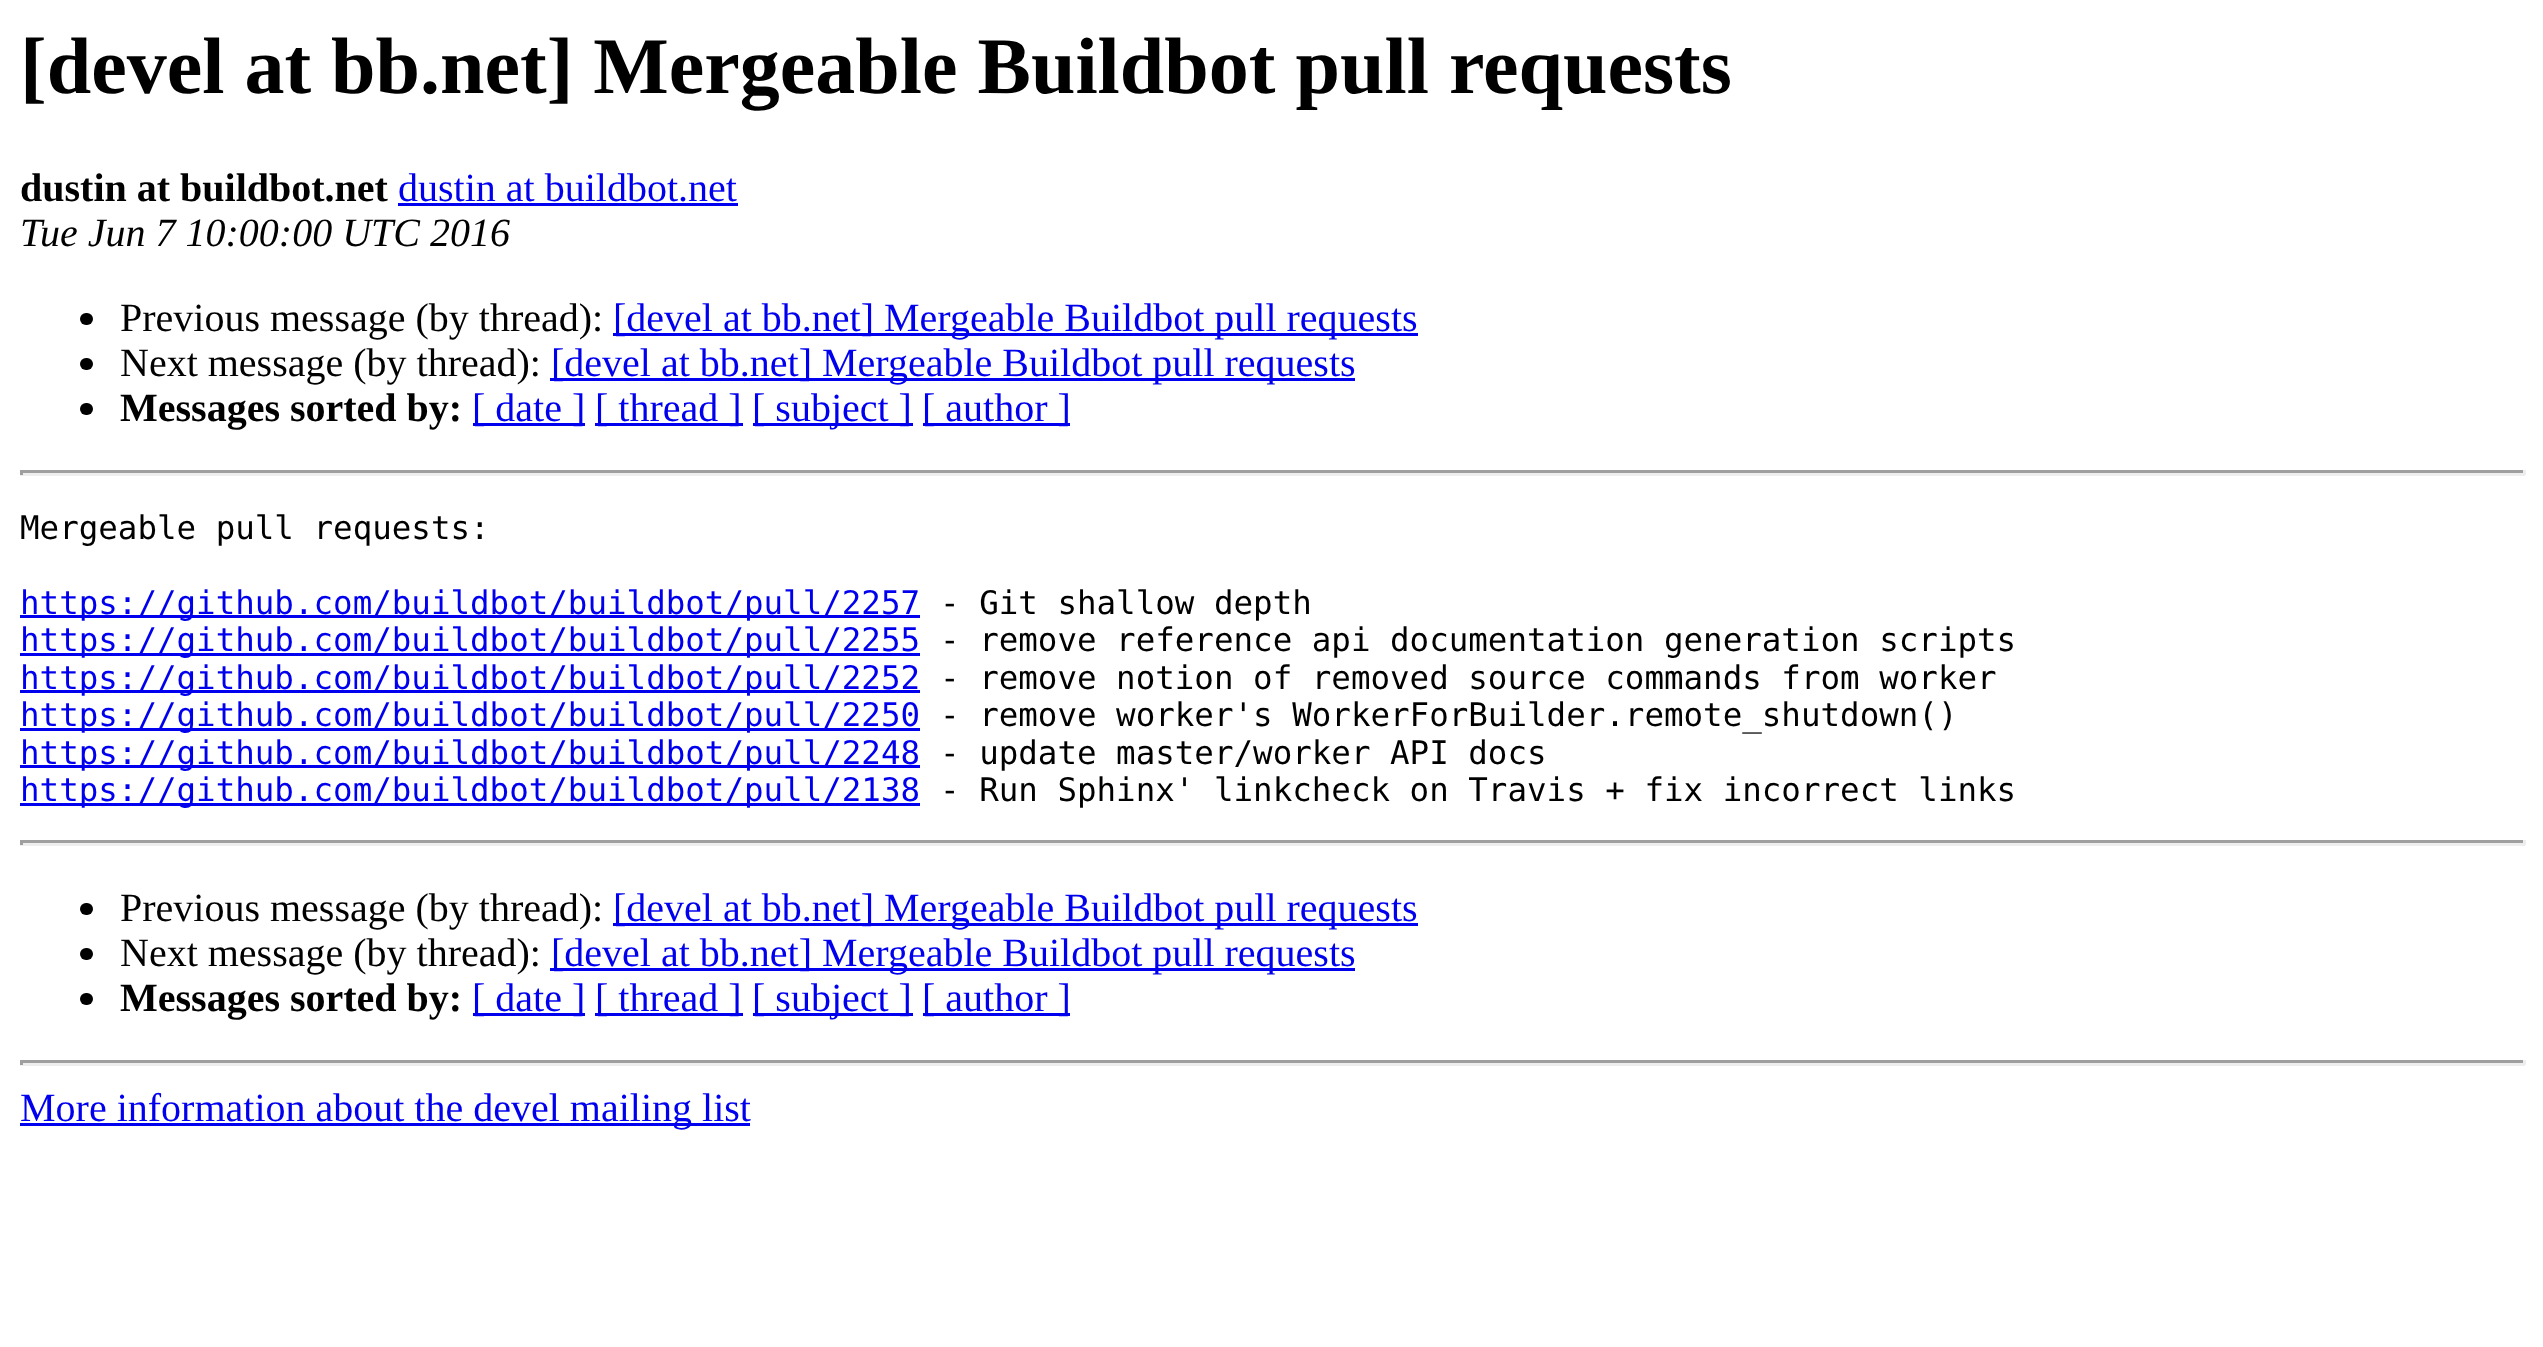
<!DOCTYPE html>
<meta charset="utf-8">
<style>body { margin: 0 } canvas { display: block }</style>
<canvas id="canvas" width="2543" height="1347"></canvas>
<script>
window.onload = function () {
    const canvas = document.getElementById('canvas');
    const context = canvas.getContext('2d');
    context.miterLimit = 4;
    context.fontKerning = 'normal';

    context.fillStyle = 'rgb(255, 255, 255)';
    context.fillRect(0, 0, 2543, 1347);
    context.fillStyle = 'rgb(0, 0, 238)';
    context.fillRect(398, 203, 340, 3);
    context.fillStyle = 'rgb(0, 0, 0)';
    context.beginPath();
    context.roundRect(80, 313, 13, 12, 6);
    context.fill();
    context.fillStyle = 'rgb(0, 0, 238)';
    context.fillRect(613, 333, 805, 3);
    context.fillStyle = 'rgb(0, 0, 0)';
    context.beginPath();
    context.roundRect(80, 358, 13, 12, 6);
    context.fill();
    context.fillStyle = 'rgb(0, 0, 238)';
    context.fillRect(550, 378, 805, 3);
    context.fillStyle = 'rgb(0, 0, 0)';
    context.beginPath();
    context.roundRect(80, 403, 13, 12, 6);
    context.fill();
    context.fillStyle = 'rgb(0, 0, 238)';
    context.fillRect(473, 423, 112, 3);
    context.fillRect(595, 423, 148, 3);
    context.fillRect(753, 423, 160, 3);
    context.fillRect(923, 423, 147, 3);
    context.fillStyle = 'rgb(159, 159, 159)';
    context.fillRect(20, 470, 2505, 3);
    context.fillStyle = 'rgb(238, 238, 238)';
    context.fillRect(2523, 470, 3, 5);
    context.fillRect(20, 473, 2505, 3);
    context.fillStyle = 'rgb(159, 159, 159)';
    context.fillRect(20, 470, 3, 5);
    context.fillStyle = 'rgb(0, 0, 238)';
    context.fillRect(20, 615, 900, 3);
    context.fillRect(20, 653, 900, 3);
    context.fillRect(20, 690, 900, 3);
    context.fillRect(20, 728, 900, 3);
    context.fillRect(20, 765, 900, 3);
    context.fillRect(20, 803, 900, 3);
    context.fillStyle = 'rgb(159, 159, 159)';
    context.fillRect(20, 840, 2505, 3);
    context.fillStyle = 'rgb(238, 238, 238)';
    context.fillRect(2523, 840, 3, 5);
    context.fillRect(20, 843, 2505, 3);
    context.fillStyle = 'rgb(159, 159, 159)';
    context.fillRect(20, 840, 3, 5);
    context.fillStyle = 'rgb(0, 0, 0)';
    context.beginPath();
    context.roundRect(80, 903, 13, 12, 6);
    context.fill();
    context.fillStyle = 'rgb(0, 0, 238)';
    context.fillRect(613, 923, 805, 3);
    context.fillStyle = 'rgb(0, 0, 0)';
    context.beginPath();
    context.roundRect(80, 948, 13, 12, 6);
    context.fill();
    context.fillStyle = 'rgb(0, 0, 238)';
    context.fillRect(550, 968, 805, 3);
    context.fillStyle = 'rgb(0, 0, 0)';
    context.beginPath();
    context.roundRect(80, 993, 13, 12, 6);
    context.fill();
    context.fillStyle = 'rgb(0, 0, 238)';
    context.fillRect(473, 1013, 112, 3);
    context.fillRect(595, 1013, 148, 3);
    context.fillRect(753, 1013, 160, 3);
    context.fillRect(923, 1013, 147, 3);
    context.fillStyle = 'rgb(159, 159, 159)';
    context.fillRect(20, 1060, 2505, 3);
    context.fillStyle = 'rgb(238, 238, 238)';
    context.fillRect(2523, 1060, 3, 5);
    context.fillRect(20, 1063, 2505, 3);
    context.fillStyle = 'rgb(159, 159, 159)';
    context.fillRect(20, 1060, 3, 5);
    context.fillStyle = 'rgb(0, 0, 238)';
    context.fillRect(20, 1123, 730, 3);
    context.font = 'bold 80px Liberation Serif';
    context.fillStyle = 'rgb(0, 0, 0)';
    context.fillText('[devel at bb.net] Mergeable Buildbot pull requests', 20, 93);
    context.font = 'bold 40px Liberation Serif';
    context.fillText('dustin at buildbot.net', 20, 201);
    context.font = '40px Liberation Serif';
    context.fillStyle = 'rgb(0, 0, 238)';
    context.fillText('dustin at buildbot.net', 398, 201);
    context.font = 'italic 40px Liberation Serif';
    context.fillStyle = 'rgb(0, 0, 0)';
    context.fillText('Tue Jun 7 10:00:00 UTC 2016', 20, 246);
    context.font = '40px Liberation Serif';
    context.fillText('Previous message (by thread):', 120, 331);
    context.fillStyle = 'rgb(0, 0, 238)';
    context.fillText('[devel at bb.net] Mergeable Buildbot pull requests', 613, 331);
    context.fillStyle = 'rgb(0, 0, 0)';
    context.fillText('Next message (by thread):', 120, 376);
    context.fillStyle = 'rgb(0, 0, 238)';
    context.fillText('[devel at bb.net] Mergeable Buildbot pull requests', 551, 376);
    context.font = 'bold 40px Liberation Serif';
    context.fillStyle = 'rgb(0, 0, 0)';
    context.fillText('Messages sorted by:', 120, 421);
    context.font = '40px Liberation Serif';
    context.fillStyle = 'rgb(0, 0, 238)';
    context.fillText('[ date ]', 472, 421);
    context.fillText('[ thread ]', 595, 421);
    context.fillText('[ subject ]', 752, 421);
    context.fillText('[ author ]', 922, 421);
    context.font = '32.5px DejaVu Sans Mono';
    context.fillStyle = 'rgb(0, 0, 0)';
    context.fillText('Mergeable pull requests:', 20, 539);
    context.fillStyle = 'rgb(0, 0, 238)';
    context.fillText('https://github.com/buildbot/buildbot/pull/2257', 20, 614);
    context.fillStyle = 'rgb(0, 0, 0)';
    context.fillText('- Git shallow depth', 940, 614);
    context.fillStyle = 'rgb(0, 0, 238)';
    context.fillText('https://github.com/buildbot/buildbot/pull/2255', 20, 651);
    context.fillStyle = 'rgb(0, 0, 0)';
    context.fillText('- remove reference api documentation generation scripts', 940, 651);
    context.fillStyle = 'rgb(0, 0, 238)';
    context.fillText('https://github.com/buildbot/buildbot/pull/2252', 20, 689);
    context.fillStyle = 'rgb(0, 0, 0)';
    context.fillText('- remove notion of removed source commands from worker', 940, 689);
    context.fillStyle = 'rgb(0, 0, 238)';
    context.fillText('https://github.com/buildbot/buildbot/pull/2250', 20, 726);
    context.fillStyle = 'rgb(0, 0, 0)';
    context.fillText('- remove worker\'s WorkerForBuilder.remote_shutdown()', 940, 726);
    context.fillStyle = 'rgb(0, 0, 238)';
    context.fillText('https://github.com/buildbot/buildbot/pull/2248', 20, 764);
    context.fillStyle = 'rgb(0, 0, 0)';
    context.fillText('- update master/worker API docs', 940, 764);
    context.fillStyle = 'rgb(0, 0, 238)';
    context.fillText('https://github.com/buildbot/buildbot/pull/2138', 20, 801);
    context.fillStyle = 'rgb(0, 0, 0)';
    context.fillText('- Run Sphinx\' linkcheck on Travis + fix incorrect links', 940, 801);
    context.font = '40px Liberation Serif';
    context.fillText('Previous message (by thread):', 120, 921);
    context.fillStyle = 'rgb(0, 0, 238)';
    context.fillText('[devel at bb.net] Mergeable Buildbot pull requests', 613, 921);
    context.fillStyle = 'rgb(0, 0, 0)';
    context.fillText('Next message (by thread):', 120, 966);
    context.fillStyle = 'rgb(0, 0, 238)';
    context.fillText('[devel at bb.net] Mergeable Buildbot pull requests', 551, 966);
    context.font = 'bold 40px Liberation Serif';
    context.fillStyle = 'rgb(0, 0, 0)';
    context.fillText('Messages sorted by:', 120, 1011);
    context.font = '40px Liberation Serif';
    context.fillStyle = 'rgb(0, 0, 238)';
    context.fillText('[ date ]', 472, 1011);
    context.fillText('[ thread ]', 595, 1011);
    context.fillText('[ subject ]', 752, 1011);
    context.fillText('[ author ]', 922, 1011);
    context.fillText('More information about the devel mailing list', 20, 1121);
};
</script>
